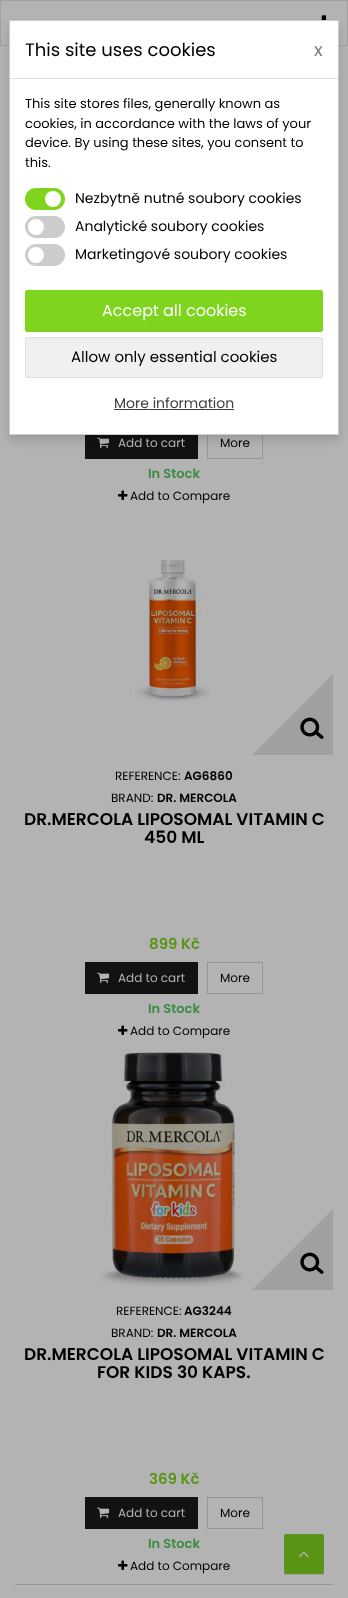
<!DOCTYPE html>
<meta charset="utf-8">
<style>body { margin: 0 } canvas { display: block }</style>
<canvas id="canvas" width="348" height="1598"></canvas>
<img id="img1" src="images/1.png" hidden>
<img id="img2" src="images/2.png" hidden>
<img id="img3" src="images/3.png" hidden>
<img id="img4" src="images/4.png" hidden>
<img id="img5" src="images/5.png" hidden>
<img id="img6" src="images/6.png" hidden>
<img id="img7" src="images/7.png" hidden>
<script>
window.onload = function () {
    const canvas = document.getElementById('canvas');
    const context = canvas.getContext('2d');
    context.miterLimit = 4;
    context.fontKerning = 'normal';

    context.fillStyle = 'rgb(179, 179, 179)';
    context.fillRect(0, 0, 348, 1598);
    context.strokeStyle = 'rgb(161, 161, 161)';
    context.strokeRect(0.5, 0.5, 347, 45);
    context.drawImage(document.getElementById('img1'), 321, 15, 5, 5);
    context.fillStyle = 'rgb(19, 18, 19)';
    context.fillRect(85, 435, 113, 24);
    context.drawImage(document.getElementById('img2'), 97, 437, 13, 11);
    context.strokeStyle = 'rgb(150, 148, 148)';
    context.strokeRect(207.5, 427.5, 55, 31);
    context.fillStyle = 'rgba(0, 0, 0, 0.15)';
    context.filter = 'blur(5px)';
    context.beginPath();
    context.rect(9, 25, 330, 415);
    context.fill();
    context.filter = 'none';
    context.fillStyle = 'rgb(255, 255, 255)';
    context.beginPath();
    context.rect(9.5, 20.5, 329, 414);
    context.fill();
    context.strokeStyle = 'rgb(204, 204, 204)';
    context.stroke();
    context.fillStyle = 'rgb(222, 226, 230)';
    context.fillRect(10, 78, 328, 1);
    context.fillStyle = 'rgb(127, 212, 29)';
    context.beginPath();
    context.roundRect(25, 188, 40, 22, 11);
    context.fill();
    context.fillStyle = 'rgb(255, 255, 255)';
    context.beginPath();
    context.arc(53, 199, 8, 0, 2 * Math.PI);
    context.fill();
    context.fillStyle = 'rgb(204, 204, 204)';
    context.beginPath();
    context.roundRect(25, 216, 40, 22, 11);
    context.fill();
    context.fillStyle = 'rgb(255, 255, 255)';
    context.beginPath();
    context.arc(36, 227, 8, 0, 2 * Math.PI);
    context.fill();
    context.fillStyle = 'rgb(204, 204, 204)';
    context.beginPath();
    context.roundRect(25, 244, 40, 22, 11);
    context.fill();
    context.fillStyle = 'rgb(255, 255, 255)';
    context.beginPath();
    context.arc(36, 255, 8, 0, 2 * Math.PI);
    context.fill();
    context.fillStyle = 'rgb(127, 212, 29)';
    context.beginPath();
    context.roundRect(25.5, 290.5, 297, 41, 1.5);
    context.fill();
    context.strokeStyle = 'rgb(127, 212, 29)';
    context.stroke();
    context.fillStyle = 'rgb(240, 240, 240)';
    context.beginPath();
    context.roundRect(25.5, 337.5, 297, 40, 1.5);
    context.fill();
    context.strokeStyle = 'rgb(221, 221, 221)';
    context.stroke();
    context.fillStyle = 'rgb(64, 64, 64)';
    context.fillRect(114, 409, 120, 1);
    context.drawImage(document.getElementById('img3'), 118, 490, 10, 10);
    context.drawImage(document.getElementById('img4'), 135, 560, 76, 141);
    context.save();
    context.beginPath();
    context.rect(118, 600, 215, 155);
    context.clip();
    context.fillStyle = 'rgb(160, 160, 161)';
    context.beginPath();
    context.moveTo(338, 669);
    context.lineTo(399, 729);
    context.lineTo(307, 821);
    context.lineTo(246, 761);
    context.closePath();
    context.fill();
    context.restore();
    context.drawImage(document.getElementById('img5'), 300, 717, 24, 22);
    context.fillStyle = 'rgb(19, 18, 19)';
    context.fillRect(85, 962, 113, 32);
    context.drawImage(document.getElementById('img2'), 97, 972, 13, 11);
    context.strokeStyle = 'rgb(150, 148, 148)';
    context.strokeRect(207.5, 962.5, 55, 31);
    context.drawImage(document.getElementById('img3'), 118, 1025, 10, 10);
    context.drawImage(document.getElementById('img6'), 100, 1048, 144, 239);
    context.save();
    context.beginPath();
    context.rect(118, 1135, 215, 155);
    context.clip();
    context.fillStyle = 'rgb(160, 160, 161)';
    context.beginPath();
    context.moveTo(338, 1204);
    context.lineTo(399, 1264);
    context.lineTo(307, 1356);
    context.lineTo(246, 1296);
    context.closePath();
    context.fill();
    context.restore();
    context.drawImage(document.getElementById('img5'), 300, 1252, 24, 22);
    context.fillRect(85, 1497, 113, 32);
    context.drawImage(document.getElementById('img2'), 97, 1507, 13, 11);
    context.strokeRect(207.5, 1497.5, 55, 31);
    context.drawImage(document.getElementById('img3'), 118, 1560, 10, 10);
    context.fillStyle = 'rgb(150, 148, 148)';
    context.fillRect(15, 1584, 318, 1);
    context.fillStyle = 'rgba(0, 0, 0, 0.1)';
    context.filter = 'blur(0.5px)';
    context.beginPath();
    context.roundRect(284, 1535, 40, 40, 2);
    context.fill();
    context.filter = 'none';
    context.fillStyle = 'rgb(89, 148, 20)';
    context.beginPath();
    context.roundRect(284, 1534, 40, 40, 2);
    context.fill();
    context.drawImage(document.getElementById('img7'), 298, 1551, 11, 7);
    context.font = '18px Poppins';
    context.fillStyle = 'rgb(0, 0, 0)';
    context.fillText('This site uses cookies', 25, 56);
    context.fillStyle = 'rgb(122, 122, 122)';
    context.fillText('x', 314, 56);
    context.font = '13px Poppins';
    context.fillStyle = 'rgb(0, 0, 0)';
    context.fillText('This site stores files, generally known as', 25, 108);
    context.fillText('cookies, in accordance with the laws of your', 25, 128);
    context.fillText('device. By using these sites, you consent to', 25, 147);
    context.fillText('this.', 25, 167);
    context.font = '14px Poppins';
    context.fillText('Nezbytně nutné soubory cookies', 75, 203);
    context.fillText('Analytické soubory cookies', 75, 231);
    context.fillText('Marketingové soubory cookies', 75, 259);
    context.font = '16px Poppins';
    context.fillStyle = 'rgb(255, 255, 255)';
    context.fillText('Accept all cookies', 102, 316);
    context.font = '15px Poppins';
    context.fillStyle = 'rgb(0, 0, 0)';
    context.fillText('Allow only essential cookies', 71, 362);
    context.font = '14px Poppins';
    context.fillStyle = 'rgb(64, 64, 64)';
    context.fillText('More information', 114, 408);
    context.font = '12px Poppins';
    context.fillStyle = 'rgb(179, 179, 179)';
    context.fillText('Add to cart', 118, 447);
    context.fillStyle = 'rgb(0, 0, 0)';
    context.fillText('More', 220, 447);
    context.font = '600 13px Poppins';
    context.fillStyle = 'rgb(59, 139, 66)';
    context.fillText('In Stock', 148, 478);
    context.font = '12px Poppins';
    context.fillStyle = 'rgb(0, 0, 0)';
    context.fillText('Add to Compare', 130, 500);
    context.fillText('REFERENCE:', 115, 780);
    context.font = '600 12px Poppins';
    context.fillText('AG6860', 184, 780);
    context.font = '12px Poppins';
    context.fillText('BRAND:', 111, 802);
    context.font = '600 12px Poppins';
    context.fillText('DR. MERCOLA', 157, 802);
    context.font = '600 17px Poppins';
    context.fillText('DR.MERCOLA LIPOSOMAL VITAMIN C', 24, 825);
    context.fillText('450 ML', 144, 843);
    context.font = '600 15px Poppins';
    context.fillStyle = 'rgb(89, 148, 20)';
    context.fillText('899 Kč', 149, 949);
    context.font = '12px Poppins';
    context.fillStyle = 'rgb(179, 179, 179)';
    context.fillText('Add to cart', 118, 982);
    context.fillStyle = 'rgb(0, 0, 0)';
    context.fillText('More', 220, 982);
    context.font = '600 13px Poppins';
    context.fillStyle = 'rgb(59, 139, 66)';
    context.fillText('In Stock', 148, 1013);
    context.font = '12px Poppins';
    context.fillStyle = 'rgb(0, 0, 0)';
    context.fillText('Add to Compare', 130, 1035);
    context.fillText('REFERENCE:', 116, 1315);
    context.font = '600 12px Poppins';
    context.fillText('AG3244', 184, 1315);
    context.font = '12px Poppins';
    context.fillText('BRAND:', 111, 1337);
    context.font = '600 12px Poppins';
    context.fillText('DR. MERCOLA', 157, 1337);
    context.font = '600 17px Poppins';
    context.fillText('DR.MERCOLA LIPOSOMAL VITAMIN C', 24, 1360);
    context.fillText('FOR KIDS 30 KAPS.', 97, 1378);
    context.font = '600 15px Poppins';
    context.fillStyle = 'rgb(89, 148, 20)';
    context.fillText('369 Kč', 149, 1484);
    context.font = '12px Poppins';
    context.fillStyle = 'rgb(179, 179, 179)';
    context.fillText('Add to cart', 118, 1517);
    context.fillStyle = 'rgb(0, 0, 0)';
    context.fillText('More', 220, 1517);
    context.font = '600 13px Poppins';
    context.fillStyle = 'rgb(59, 139, 66)';
    context.fillText('In Stock', 148, 1548);
    context.font = '12px Poppins';
    context.fillStyle = 'rgb(0, 0, 0)';
    context.fillText('Add to Compare', 130, 1570);
};
</script>
